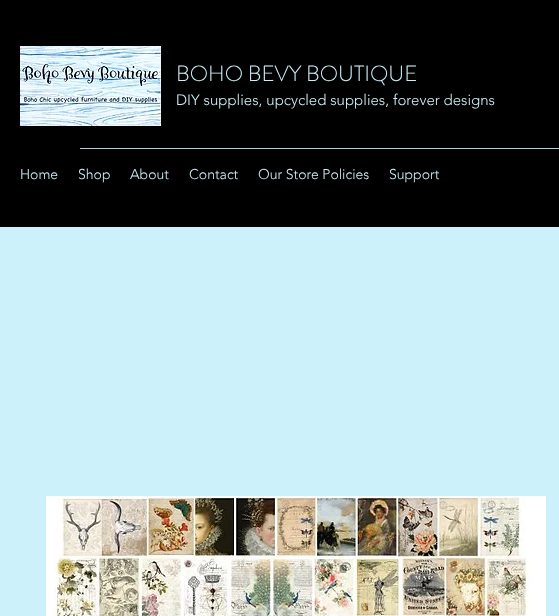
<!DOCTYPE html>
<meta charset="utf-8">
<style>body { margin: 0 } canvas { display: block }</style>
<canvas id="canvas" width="559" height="616"></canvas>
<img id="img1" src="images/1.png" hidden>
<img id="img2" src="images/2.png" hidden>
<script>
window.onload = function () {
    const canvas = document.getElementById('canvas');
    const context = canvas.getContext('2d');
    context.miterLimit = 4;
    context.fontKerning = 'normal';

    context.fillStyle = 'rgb(205, 241, 250)';
    context.fillRect(0, 0, 559, 616);
    context.fillStyle = 'rgb(0, 0, 0)';
    context.fillRect(0, 0, 559, 227);
    context.drawImage(document.getElementById('img1'), 20, 46, 141, 80);
    context.fillStyle = 'rgb(174, 205, 213)';
    context.fillRect(80, 148, 479, 1);
    context.drawImage(document.getElementById('img2'), 46, 496, 500, 120);
    context.font = '300 22px "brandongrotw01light"';
    context.fillStyle = 'rgb(205, 241, 250)';
    context.fillText('BOHO BEVY BOUTIQUE', 176, 81);
    context.font = '300 15px "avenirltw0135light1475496"';
    context.fillText('DIY supplies, upcycled supplies, forever designs', 176, 105);
    context.font = '300 14px "avenirltw0135light1475496"';
    context.fillText('Home', 20, 179);
    context.fillText('Shop', 78, 179);
    context.fillText('About', 130, 179);
    context.fillText('Contact', 189, 179);
    context.fillText('Our Store Policies', 258, 179);
    context.fillText('Support', 389, 179);
};
</script>
